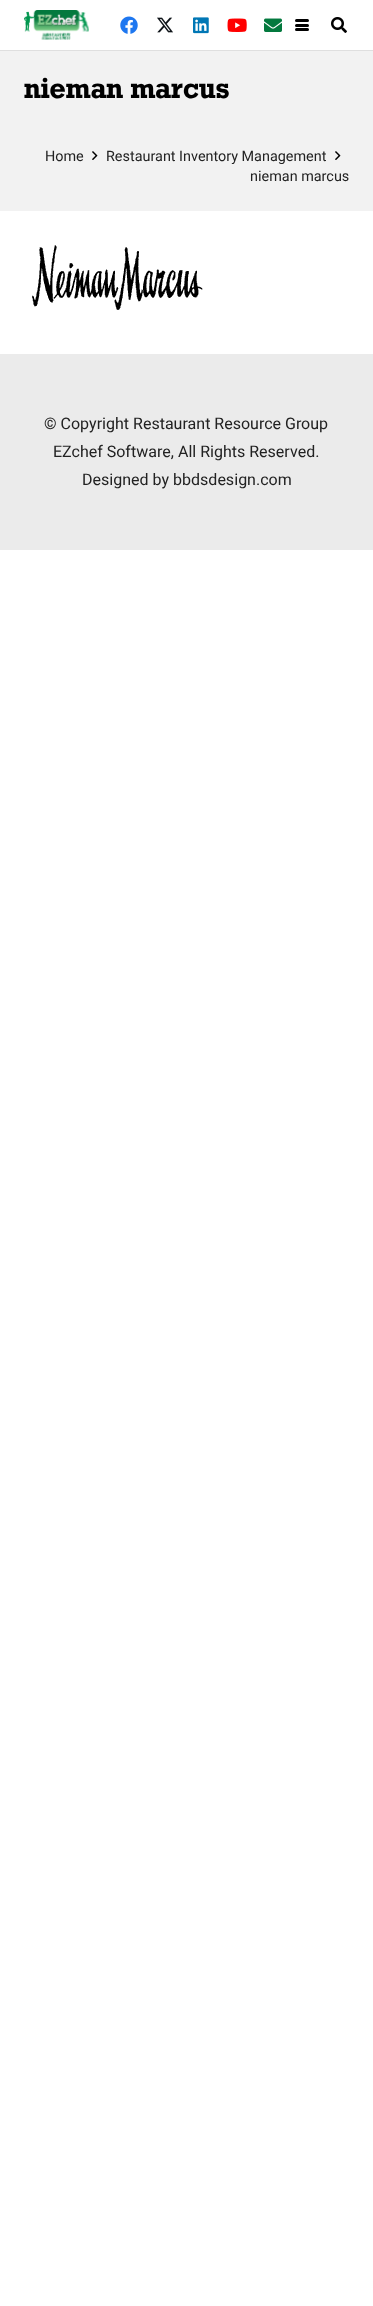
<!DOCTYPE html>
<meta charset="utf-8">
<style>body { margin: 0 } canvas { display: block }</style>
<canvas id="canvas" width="373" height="2306"></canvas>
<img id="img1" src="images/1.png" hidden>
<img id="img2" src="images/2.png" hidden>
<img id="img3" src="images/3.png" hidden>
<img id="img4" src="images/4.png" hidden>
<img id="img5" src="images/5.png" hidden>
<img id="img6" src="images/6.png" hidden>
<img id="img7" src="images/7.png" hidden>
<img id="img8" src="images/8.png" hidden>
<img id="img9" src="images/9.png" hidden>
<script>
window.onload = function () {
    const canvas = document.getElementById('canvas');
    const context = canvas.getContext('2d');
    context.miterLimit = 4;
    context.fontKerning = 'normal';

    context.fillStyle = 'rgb(255, 255, 255)';
    context.fillRect(0, 0, 373, 2306);
    context.fillStyle = 'rgb(223, 223, 223)';
    context.fillRect(0, 50, 373, 1);
    context.drawImage(document.getElementById('img1'), 24, 10, 65, 30);
    context.drawImage(document.getElementById('img2'), 120, 16, 18, 18);
    context.drawImage(document.getElementById('img3'), 157, 17, 16, 16);
    context.drawImage(document.getElementById('img4'), 193, 17, 16, 17);
    context.drawImage(document.getElementById('img5'), 227, 18, 20, 14);
    context.drawImage(document.getElementById('img6'), 264, 18, 18, 14);
    context.fillStyle = 'rgb(0, 0, 0)';
    context.beginPath();
    context.roundRect(295, 24, 14, 3, 1.5);
    context.fill();
    context.beginPath();
    context.roundRect(295, 19, 14, 3, 1.5);
    context.fill();
    context.beginPath();
    context.roundRect(295, 28, 14, 3, 1.5);
    context.fill();
    context.drawImage(document.getElementById('img7'), 331, 17, 16, 16);
    context.fillStyle = 'rgb(242, 242, 242)';
    context.fillRect(0, 51, 373, 160);
    context.drawImage(document.getElementById('img8'), 92, 151, 6, 9);
    context.drawImage(document.getElementById('img8'), 335, 151, 6, 9);
    context.drawImage(document.getElementById('img9'), 32, 245, 171, 65);
    context.fillStyle = 'rgb(235, 235, 235)';
    context.fillRect(0, 354, 373, 196);
    context.font = 'bold 28.75px "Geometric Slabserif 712"';
    context.fillStyle = 'rgb(0, 0, 0)';
    context.fillText('nieman marcus', 24, 98);
    context.font = '14.4px Heebo';
    context.fillStyle = 'rgb(34, 34, 34)';
    context.fillText('Home', 45, 161);
    context.fillText('Restaurant Inventory Management', 106, 161);
    context.fillText('nieman marcus', 250, 181);
    context.font = '16px Heebo';
    context.fillText('© Copyright Restaurant Resource Group', 44, 429);
    context.fillText('EZchef Software, All Rights Reserved.', 53, 457);
    context.fillText('Designed by bbdsdesign.com', 82, 485);
};
</script>
